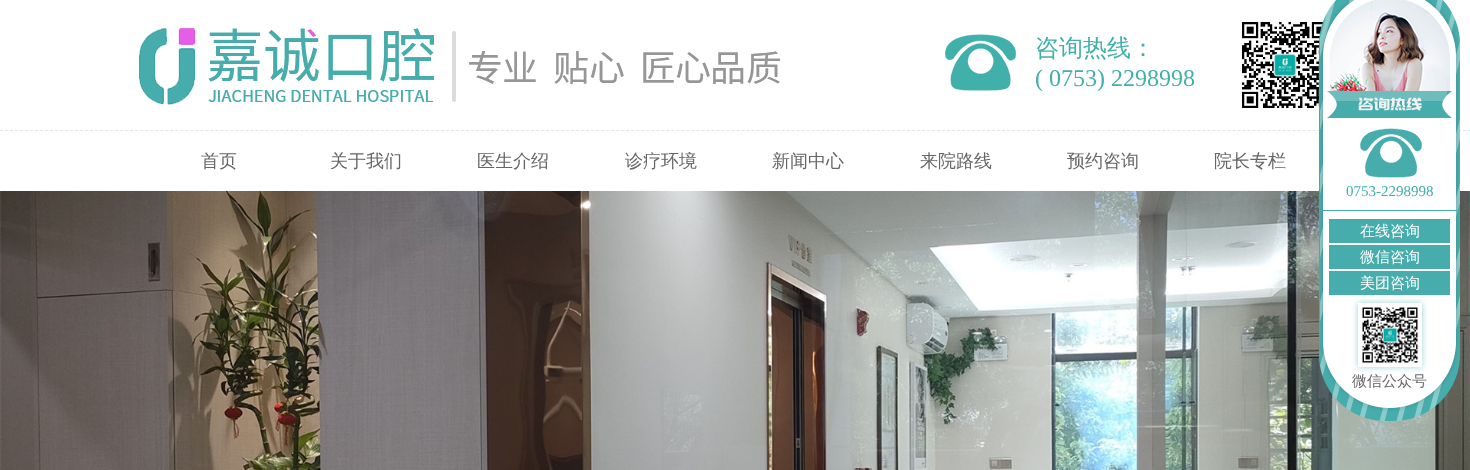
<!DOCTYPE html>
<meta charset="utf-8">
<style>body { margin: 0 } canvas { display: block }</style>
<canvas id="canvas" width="1470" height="470"></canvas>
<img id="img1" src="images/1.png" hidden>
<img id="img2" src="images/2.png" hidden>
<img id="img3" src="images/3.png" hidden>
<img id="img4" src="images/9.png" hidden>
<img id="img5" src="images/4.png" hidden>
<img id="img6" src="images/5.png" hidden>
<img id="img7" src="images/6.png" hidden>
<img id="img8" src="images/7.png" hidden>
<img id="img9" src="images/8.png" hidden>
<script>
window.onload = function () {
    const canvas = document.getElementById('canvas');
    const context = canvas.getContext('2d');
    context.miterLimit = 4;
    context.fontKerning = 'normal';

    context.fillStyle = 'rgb(255, 255, 255)';
    context.fillRect(0, 0, 1470, 470);
    context.beginPath();
    context.moveTo(0, 130.5);
    context.lineTo(1470, 130.5);
    context.strokeStyle = 'rgb(229, 229, 229)';
    context.setLineDash([3, 2.01]);
    context.stroke();
    context.drawImage(document.getElementById('img1'), 138, 28, 642, 77);
    context.drawImage(document.getElementById('img2'), 945, 34, 71, 57);
    context.drawImage(document.getElementById('img3'), 1241, 21, 83, 87);
    context.drawImage(document.getElementById('img4'), 0, 191, 1470, 279);
    context.drawImage(document.getElementById('img5'), 1319, 0, 141, 421);
    context.drawImage(document.getElementById('img6'), 1330, 0, 120, 93);
    context.drawImage(document.getElementById('img7'), 1327, 91, 125, 27);
    context.drawImage(document.getElementById('img8'), 1360, 128, 62, 50);
    context.fillStyle = 'rgb(70, 173, 172)';
    context.fillRect(1319, 210, 141, 1);
    context.fillRect(1329, 219, 121, 24);
    context.fillRect(1329, 245, 121, 24);
    context.save();
    context.beginPath();
    context.moveTo(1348, 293);
    context.lineTo(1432, 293);
    context.lineTo(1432, 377);
    context.lineTo(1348, 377);
    context.closePath();
    context.moveTo(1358, 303);
    context.lineTo(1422, 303);
    context.lineTo(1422, 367);
    context.lineTo(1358, 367);
    context.closePath();
    context.clip('evenodd');
    context.fillStyle = 'rgba(70, 173, 172, 0.54)';
    context.filter = 'blur(3px)';
    context.beginPath();
    context.rect(1358, 303, 64, 64);
    context.fill();
    context.filter = 'none';
    context.restore();
    context.fillRect(1329, 271, 121, 24);
    context.drawImage(document.getElementById('img9'), 1362, 307, 57, 57);
    context.font = '500 24px WenQuanYi Zen Hei';
    context.fillStyle = 'rgb(65, 176, 170)';
    context.fillText('咨询热线：', 1035, 56);
    context.font = '24px Liberation Serif';
    context.fillText('( 0753) 2298998', 1035, 86);
    context.font = '500 18px WenQuanYi Zen Hei';
    context.fillStyle = 'rgb(102, 102, 102)';
    context.fillText('首页', 201, 167);
    context.fillText('关于我们', 330, 167);
    context.fillText('医生介绍', 477, 167);
    context.fillText('诊疗环境', 625, 167);
    context.fillText('新闻中心', 772, 167);
    context.fillText('来院路线', 920, 167);
    context.fillText('预约咨询', 1067, 167);
    context.fillText('院长专栏', 1214, 167);
    context.font = '15px Liberation Serif';
    context.fillStyle = 'rgb(65, 176, 170)';
    context.fillText('0753-2298998', 1346, 196);
    context.font = '500 15px WenQuanYi Zen Hei';
    context.fillStyle = 'rgb(255, 255, 255)';
    context.fillText('在线咨询', 1360, 236);
    context.fillText('微信咨询', 1360, 262);
    context.fillText('美团咨询', 1360, 288);
    context.fillStyle = 'rgb(102, 102, 102)';
    context.fillText('微信公众号', 1352, 386);
};
</script>
